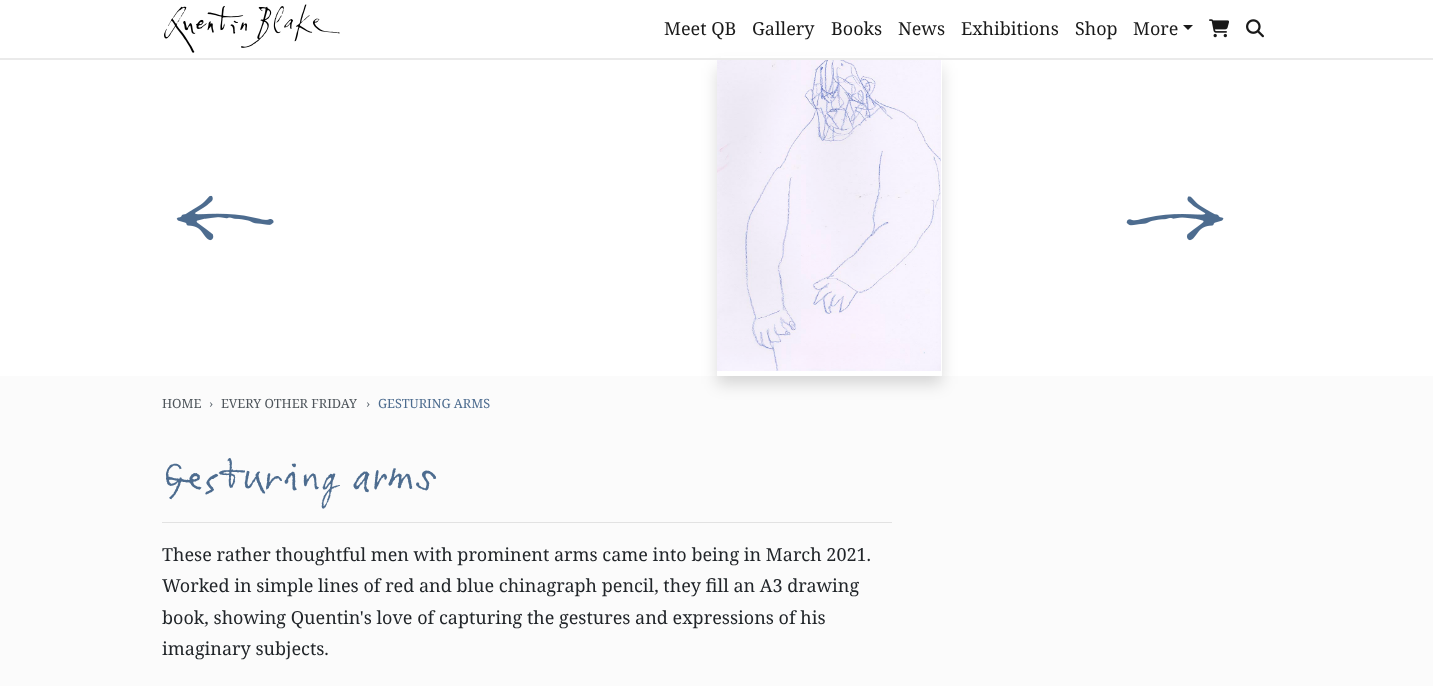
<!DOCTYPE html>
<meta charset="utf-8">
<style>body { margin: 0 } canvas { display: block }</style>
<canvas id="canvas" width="1433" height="686"></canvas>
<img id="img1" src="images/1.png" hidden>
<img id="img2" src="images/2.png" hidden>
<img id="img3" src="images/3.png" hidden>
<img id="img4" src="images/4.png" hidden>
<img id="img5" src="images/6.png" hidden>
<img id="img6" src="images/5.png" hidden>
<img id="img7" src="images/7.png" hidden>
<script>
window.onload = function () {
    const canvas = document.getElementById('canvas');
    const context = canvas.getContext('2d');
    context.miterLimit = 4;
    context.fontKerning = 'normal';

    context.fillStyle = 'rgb(255, 255, 255)';
    context.fillRect(0, 0, 1433, 686);
    context.fillStyle = 'rgb(251, 251, 251)';
    context.fillRect(0, 376, 1433, 310);
    context.save();
    context.beginPath();
    context.moveTo(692, 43);
    context.lineTo(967, 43);
    context.lineTo(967, 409);
    context.lineTo(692, 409);
    context.closePath();
    context.moveTo(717, 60);
    context.lineTo(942, 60);
    context.lineTo(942, 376);
    context.lineTo(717, 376);
    context.closePath();
    context.clip('evenodd');
    context.fillStyle = 'rgba(0, 0, 0, 0.15)';
    context.filter = 'blur(8px)';
    context.beginPath();
    context.rect(717, 68, 225, 316);
    context.fill();
    context.filter = 'none';
    context.restore();
    context.fillStyle = 'rgb(255, 255, 255)';
    context.fillRect(721, 56, 217, 2);
    context.fillStyle = 'rgb(234, 234, 234)';
    context.fillRect(0, 58, 1433, 2);
    context.drawImage(document.getElementById('img1'), 164, 4, 176, 49);
    context.fillStyle = 'rgb(26, 26, 26)';
    context.beginPath();
    context.moveTo(1183, 25);
    context.lineTo(1193, 25);
    context.lineTo(1188, 30);
    context.closePath();
    context.fill();
    context.drawImage(document.getElementById('img2'), 1209, 19, 20, 19);
    context.drawImage(document.getElementById('img3'), 1246, 19, 18, 19);
    context.drawImage(document.getElementById('img4'), 176, 195, 98, 46);
    context.drawImage(document.getElementById('img5'), 717, 370, 224, 1);
    context.drawImage(document.getElementById('img6'), 717, 60, 224, 311);
    context.drawImage(document.getElementById('img7'), 1126, 196, 98, 45);
    context.fillStyle = 'rgb(226, 226, 226)';
    context.fillRect(162, 522, 730, 1);
    context.font = '18px Noto Serif';
    context.fillStyle = 'rgb(26, 26, 26)';
    context.fillText('Meet QB', 664, 35);
    context.fillText('Gallery', 752, 35);
    context.fillText('Books', 831, 35);
    context.fillText('News', 898, 35);
    context.fillText('Exhibitions', 961, 35);
    context.fillText('Shop', 1075, 35);
    context.fillText('More', 1133, 35);
    context.font = '12.75px Noto Serif';
    context.fillStyle = 'rgb(78, 85, 91)';
    context.fillText('HOME', 162, 408);
    context.fillStyle = 'rgb(108, 117, 125)';
    context.fillText('›', 209, 408);
    context.fillStyle = 'rgb(78, 85, 91)';
    context.fillText('EVERY OTHER FRIDAY', 221, 408);
    context.fillStyle = 'rgb(108, 117, 125)';
    context.fillText('›', 366, 408);
    context.fillStyle = 'rgb(77, 108, 143)';
    context.fillText('GESTURING ARMS', 378, 408);
    context.font = '36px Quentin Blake';
    context.fillText('Gesturing arms', 162, 488);
    context.font = '18px Noto Serif';
    context.fillStyle = 'rgb(33, 37, 41)';
    context.fillText('These rather thoughtful men with prominent arms came into being in March 2021.', 162, 561);
    context.fillText('Worked in simple lines of red and blue chinagraph pencil, they fill an A3 drawing', 162, 592);
    context.fillText('book, showing Quentin\'s love of capturing the gestures and expressions of his', 162, 624);
    context.fillText('imaginary subjects.', 162, 655);
};
</script>
